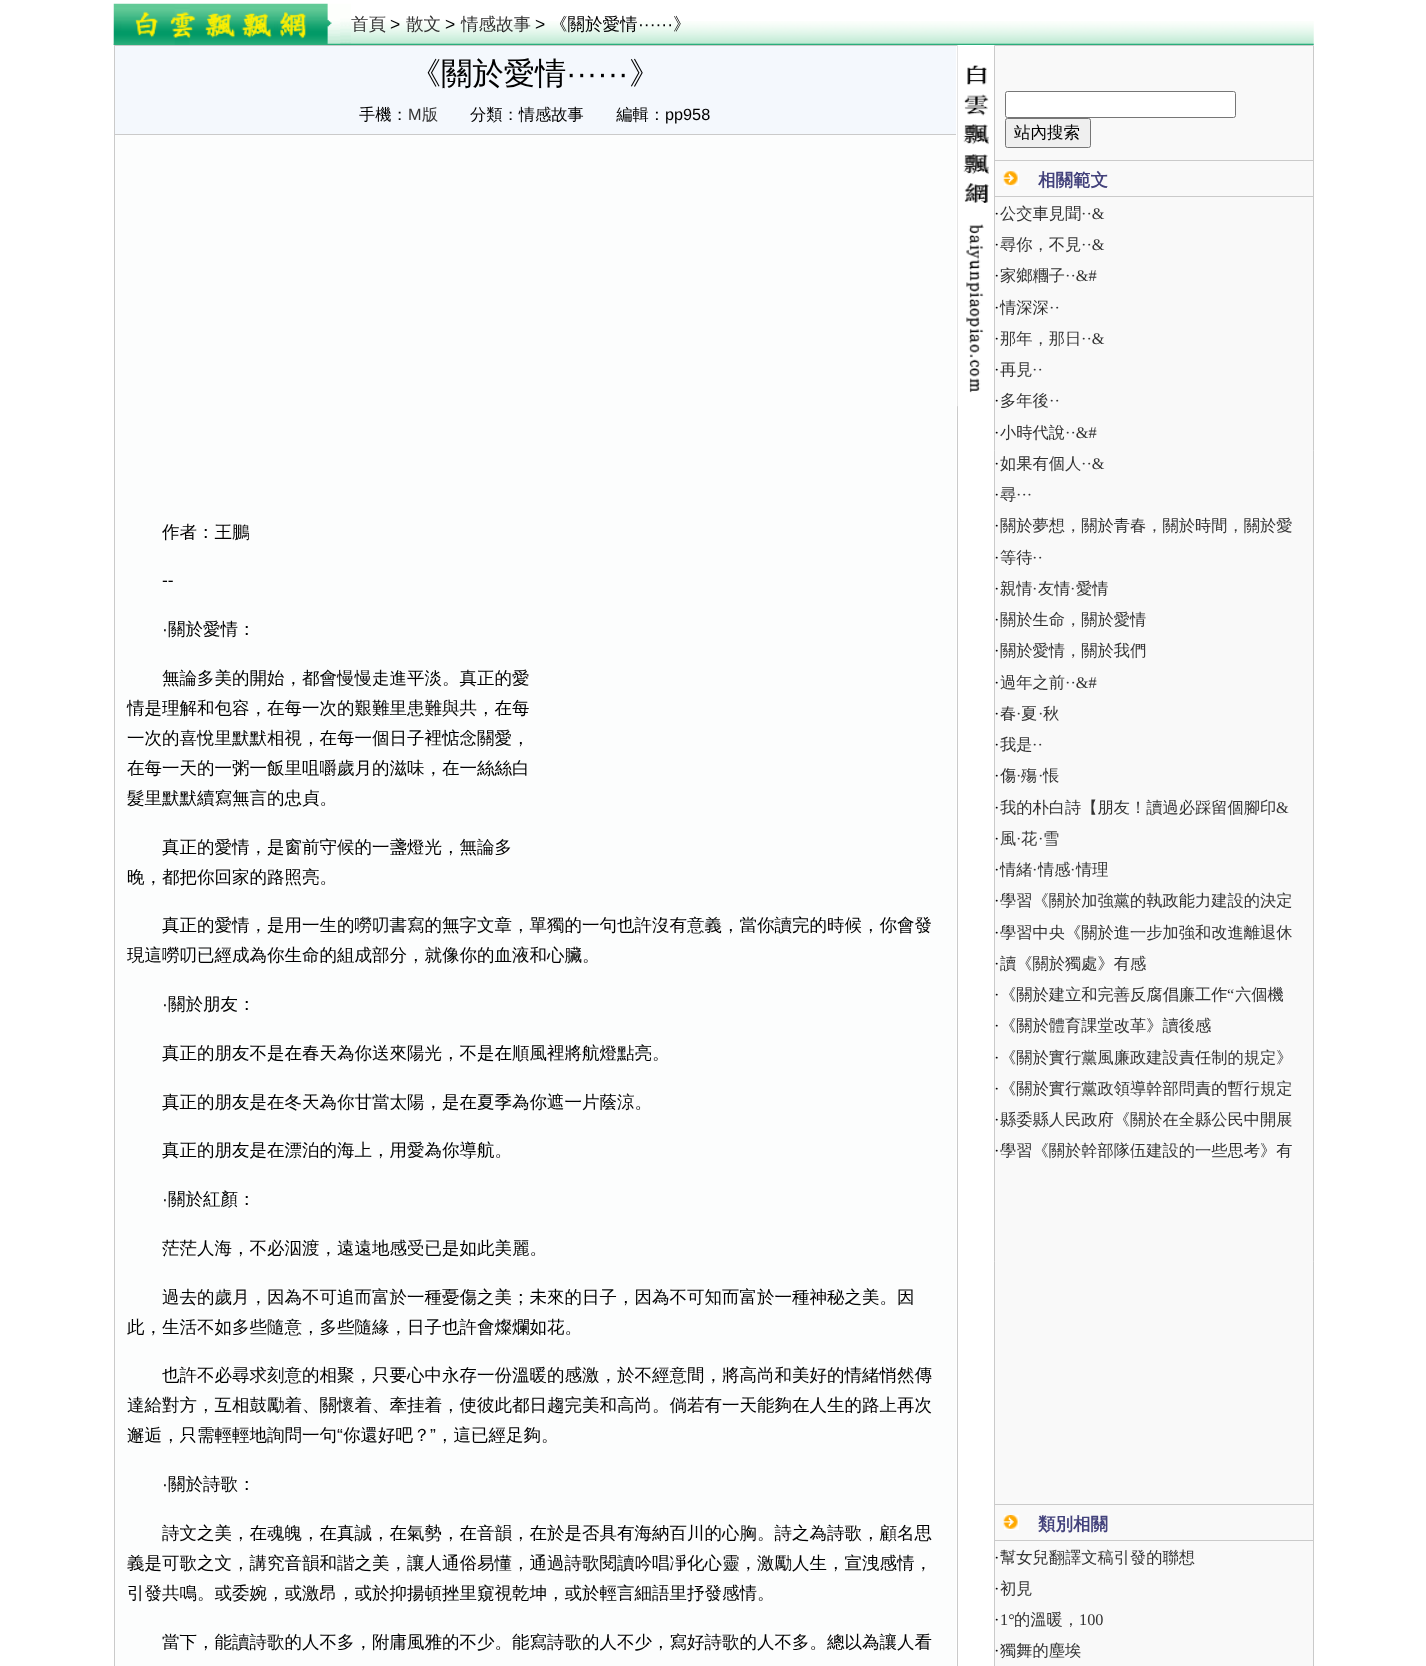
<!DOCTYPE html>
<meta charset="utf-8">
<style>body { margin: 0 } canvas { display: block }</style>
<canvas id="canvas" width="1426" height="1666"></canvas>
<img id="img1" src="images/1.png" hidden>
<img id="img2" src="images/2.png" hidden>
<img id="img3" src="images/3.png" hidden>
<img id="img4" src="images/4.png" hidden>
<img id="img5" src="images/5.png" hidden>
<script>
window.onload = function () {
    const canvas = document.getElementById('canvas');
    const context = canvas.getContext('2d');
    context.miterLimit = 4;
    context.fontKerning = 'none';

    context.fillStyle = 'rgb(255, 255, 255)';
    context.fillRect(0, 0, 1426, 1666);
    context.drawImage(document.getElementById('img1'), 113, 21, 1201, 24);
    context.drawImage(document.getElementById('img2'), 113, 3, 238, 42);
    context.strokeStyle = 'rgb(202, 202, 202)';
    context.strokeRect(114.5, 45.5, 843, 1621);
    context.fillStyle = 'rgb(244, 248, 253)';
    context.fillRect(115, 46, 841, 88);
    context.fillStyle = 'rgb(202, 202, 202)';
    context.fillRect(115, 134, 841, 1);
    context.fillStyle = 'rgb(252, 253, 253)';
    context.fillRect(115, 135, 841, 1531);
    context.drawImage(document.getElementById('img3'), 957, 45, 32, 362);
    context.fillStyle = 'rgb(249, 249, 249)';
    context.beginPath();
    context.rect(994.5, 45.5, 319, 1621);
    context.fill();
    context.stroke();
    context.fillStyle = 'rgb(255, 255, 255)';
    context.beginPath();
    context.roundRect(1005.5, 91.5, 230, 26, 2);
    context.fill();
    context.strokeStyle = 'rgb(118, 118, 118)';
    context.stroke();
    context.fillStyle = 'rgb(239, 239, 239)';
    context.beginPath();
    context.roundRect(1005.5, 118.5, 85, 29, 2);
    context.fill();
    context.stroke();
    context.drawImage(document.getElementById('img4'), 1003, 171, 16, 15);
    context.fillStyle = 'rgb(202, 202, 202)';
    context.fillRect(995, 160, 318, 1);
    context.fillRect(995, 196, 318, 1);
    context.drawImage(document.getElementById('img5'), 1003, 1515, 16, 15);
    context.fillRect(995, 1504, 318, 1);
    context.fillRect(995, 1540, 318, 1);
    context.font = '500 17.5px WenQuanYi Zen Hei';
    context.fillStyle = 'rgb(51, 51, 51)';
    context.fillText('首頁', 351, 30);
    context.font = '17.5px Liberation Sans';
    context.fillStyle = 'rgb(0, 0, 0)';
    context.fillText('>', 390, 30);
    context.font = '500 17.5px WenQuanYi Zen Hei';
    context.fillStyle = 'rgb(51, 51, 51)';
    context.fillText('散文', 406, 30);
    context.font = '17.5px Liberation Sans';
    context.fillStyle = 'rgb(0, 0, 0)';
    context.fillText('>', 445, 30);
    context.font = '500 17.5px WenQuanYi Zen Hei';
    context.fillStyle = 'rgb(51, 51, 51)';
    context.fillText('情感故事', 461, 30);
    context.font = '17.5px Liberation Sans';
    context.fillStyle = 'rgb(0, 0, 0)';
    context.fillText('>', 535, 30);
    context.font = '500 17.5px WenQuanYi Zen Hei';
    context.fillText('《關於愛情', 550, 30);
    context.font = '17.5px Liberation Sans';
    context.fillText('······', 638, 30);
    context.font = '500 17.5px WenQuanYi Zen Hei';
    context.fillText('》', 673, 30);
    context.font = '500 31.25px WenQuanYi Zen Hei';
    context.fillText('《關於愛情', 410, 84);
    context.font = '31.25px Liberation Sans';
    context.fillText('······', 566, 84);
    context.font = '500 31.25px WenQuanYi Zen Hei';
    context.fillText('》', 629, 84);
    context.font = '500 16.25px WenQuanYi Zen Hei';
    context.fillText('手機：', 359, 120);
    context.font = '16.25px Liberation Sans';
    context.fillStyle = 'rgb(51, 51, 51)';
    context.fillText('M', 408, 120);
    context.font = '500 16.25px WenQuanYi Zen Hei';
    context.fillText('版', 422, 120);
    context.fillStyle = 'rgb(0, 0, 0)';
    context.fillText('分類：情感故事　　編輯：', 470, 120);
    context.font = '16.25px Liberation Sans';
    context.fillText('pp958', 665, 120);
    context.font = '500 17.5px WenQuanYi Zen Hei';
    context.fillText('作者：王鵬', 162, 538);
    context.font = '17.5px Liberation Sans';
    context.fillText('--', 162, 586);
    context.fillText('·', 162, 635);
    context.font = '500 17.5px WenQuanYi Zen Hei';
    context.fillText('關於愛情：', 168, 635);
    context.fillText('無論多美的開始，都會慢慢走進平淡。真正的愛', 162, 684);
    context.fillText('情是理解和包容，在每一次的艱難里患難與共，在每', 127, 714);
    context.fillText('一次的喜悅里默默相視，在每一個日子裡惦念關愛，', 127, 744);
    context.fillText('在每一天的一粥一飯里咀嚼歲月的滋味，在一絲絲白', 127, 774);
    context.fillText('髮里默默續寫無言的忠貞。', 127, 804);
    context.fillText('真正的愛情，是窗前守候的一盞燈光，無論多', 162, 853);
    context.fillText('晚，都把你回家的路照亮。', 127, 883);
    context.fillText('真正的愛情，是用一生的嘮叨書寫的無字文章，單獨的一句也許沒有意義，當你讀完的時候，你會發', 162, 931);
    context.fillText('現這嘮叨已經成為你生命的組成部分，就像你的血液和心臟。', 127, 961);
    context.font = '17.5px Liberation Sans';
    context.fillText('·', 162, 1010);
    context.font = '500 17.5px WenQuanYi Zen Hei';
    context.fillText('關於朋友：', 168, 1010);
    context.fillText('真正的朋友不是在春天為你送來陽光，不是在順風裡將航燈點亮。', 162, 1059);
    context.fillText('真正的朋友是在冬天為你甘當太陽，是在夏季為你遮一片蔭涼。', 162, 1108);
    context.fillText('真正的朋友是在漂泊的海上，用愛為你導航。', 162, 1156);
    context.font = '17.5px Liberation Sans';
    context.fillText('·', 162, 1205);
    context.font = '500 17.5px WenQuanYi Zen Hei';
    context.fillText('關於紅顏：', 168, 1205);
    context.fillText('茫茫人海，不必泅渡，遠遠地感受已是如此美麗。', 162, 1254);
    context.fillText('過去的歲月，因為不可追而富於一種憂傷之美；未來的日子，因為不可知而富於一種神秘之美。因', 162, 1303);
    context.fillText('此，生活不如多些隨意，多些隨緣，日子也許會燦爛如花。', 127, 1333);
    context.fillText('也許不必尋求刻意的相聚，只要心中永存一份溫暖的感激，於不經意間，將高尚和美好的情緒悄然傳', 162, 1381);
    context.fillText('達給對方，互相鼓勵着、關懷着、牽挂着，使彼此都日趨完美和高尚。倘若有一天能夠在人生的路上再次', 127, 1411);
    context.fillText('邂逅，只需輕輕地詢問一句', 127, 1441);
    context.font = '17.5px Liberation Sans';
    context.fillText('“', 337, 1441);
    context.font = '500 17.5px WenQuanYi Zen Hei';
    context.fillText('你還好吧？', 343, 1441);
    context.font = '17.5px Liberation Sans';
    context.fillText('”', 430, 1441);
    context.font = '500 17.5px WenQuanYi Zen Hei';
    context.fillText('，這已經足夠。', 436, 1441);
    context.font = '17.5px Liberation Sans';
    context.fillText('·', 162, 1490);
    context.font = '500 17.5px WenQuanYi Zen Hei';
    context.fillText('關於詩歌：', 168, 1490);
    context.fillText('詩文之美，在魂魄，在真誠，在氣勢，在音韻，在於是否具有海納百川的心胸。詩之為詩歌，顧名思', 162, 1539);
    context.fillText('義是可歌之文，講究音韻和諧之美，讓人通俗易懂，通過詩歌閱讀吟唱凈化心靈，激勵人生，宣洩感情，', 127, 1569);
    context.fillText('引發共鳴。或委婉，或激昂，或於抑揚頓挫里窺視乾坤，或於輕言細語里抒發感情。', 127, 1599);
    context.fillText('當下，能讀詩歌的人不多，附庸風雅的不少。能寫詩歌的人不少，寫好詩歌的人不多。總以為讓人看', 162, 1648);
    context.font = '500 16.5px WenQuanYi Zen Hei';
    context.fillText('站內搜索', 1014, 138);
    context.font = 'bold 17.5px WenQuanYi Zen Hei';
    context.fillStyle = 'rgb(66, 65, 123)';
    context.fillText('相關範文', 1038, 186);
    context.font = '16.25px Liberation Serif';
    context.fillStyle = 'rgb(0, 0, 0)';
    context.fillText('·', 994, 219);
    context.font = '500 16.25px WenQuanYi Zen Hei';
    context.fillStyle = 'rgb(51, 51, 51)';
    context.fillText('公交車見聞', 1000, 219);
    context.font = '16.25px Liberation Serif';
    context.fillText('··&', 1081, 219);
    context.fillStyle = 'rgb(0, 0, 0)';
    context.fillText('·', 994, 250);
    context.font = '500 16.25px WenQuanYi Zen Hei';
    context.fillStyle = 'rgb(51, 51, 51)';
    context.fillText('尋你，不見', 1000, 250);
    context.font = '16.25px Liberation Serif';
    context.fillText('··&', 1081, 250);
    context.fillStyle = 'rgb(0, 0, 0)';
    context.fillText('·', 994, 281);
    context.font = '500 16.25px WenQuanYi Zen Hei';
    context.fillStyle = 'rgb(51, 51, 51)';
    context.fillText('家鄉糰子', 1000, 281);
    context.font = '16.25px Liberation Serif';
    context.fillText('··&#', 1065, 281);
    context.fillStyle = 'rgb(0, 0, 0)';
    context.fillText('·', 994, 313);
    context.font = '500 16.25px WenQuanYi Zen Hei';
    context.fillStyle = 'rgb(51, 51, 51)';
    context.fillText('情深深', 1000, 313);
    context.font = '16.25px Liberation Serif';
    context.fillText('··', 1049, 313);
    context.fillStyle = 'rgb(0, 0, 0)';
    context.fillText('·', 994, 344);
    context.font = '500 16.25px WenQuanYi Zen Hei';
    context.fillStyle = 'rgb(51, 51, 51)';
    context.fillText('那年，那日', 1000, 344);
    context.font = '16.25px Liberation Serif';
    context.fillText('··&', 1081, 344);
    context.fillStyle = 'rgb(0, 0, 0)';
    context.fillText('·', 994, 375);
    context.font = '500 16.25px WenQuanYi Zen Hei';
    context.fillStyle = 'rgb(51, 51, 51)';
    context.fillText('再見', 1000, 375);
    context.font = '16.25px Liberation Serif';
    context.fillText('··', 1032, 375);
    context.fillStyle = 'rgb(0, 0, 0)';
    context.fillText('·', 994, 406);
    context.font = '500 16.25px WenQuanYi Zen Hei';
    context.fillStyle = 'rgb(51, 51, 51)';
    context.fillText('多年後', 1000, 406);
    context.font = '16.25px Liberation Serif';
    context.fillText('··', 1049, 406);
    context.fillStyle = 'rgb(0, 0, 0)';
    context.fillText('·', 994, 438);
    context.font = '500 16.25px WenQuanYi Zen Hei';
    context.fillStyle = 'rgb(51, 51, 51)';
    context.fillText('小時代說', 1000, 438);
    context.font = '16.25px Liberation Serif';
    context.fillText('··&#', 1065, 438);
    context.fillStyle = 'rgb(0, 0, 0)';
    context.fillText('·', 994, 469);
    context.font = '500 16.25px WenQuanYi Zen Hei';
    context.fillStyle = 'rgb(51, 51, 51)';
    context.fillText('如果有個人', 1000, 469);
    context.font = '16.25px Liberation Serif';
    context.fillText('··&', 1081, 469);
    context.fillStyle = 'rgb(0, 0, 0)';
    context.fillText('·', 994, 500);
    context.font = '500 16.25px WenQuanYi Zen Hei';
    context.fillStyle = 'rgb(51, 51, 51)';
    context.fillText('尋', 1000, 500);
    context.font = '16.25px Liberation Serif';
    context.fillText('···', 1016, 500);
    context.fillStyle = 'rgb(0, 0, 0)';
    context.fillText('·', 994, 531);
    context.font = '500 16.25px WenQuanYi Zen Hei';
    context.fillStyle = 'rgb(51, 51, 51)';
    context.fillText('關於夢想，關於青春，關於時間，關於愛', 1000, 531);
    context.font = '16.25px Liberation Serif';
    context.fillStyle = 'rgb(0, 0, 0)';
    context.fillText('·', 994, 563);
    context.font = '500 16.25px WenQuanYi Zen Hei';
    context.fillStyle = 'rgb(51, 51, 51)';
    context.fillText('等待', 1000, 563);
    context.font = '16.25px Liberation Serif';
    context.fillText('··', 1032, 563);
    context.fillStyle = 'rgb(0, 0, 0)';
    context.fillText('·', 994, 594);
    context.font = '500 16.25px WenQuanYi Zen Hei';
    context.fillStyle = 'rgb(51, 51, 51)';
    context.fillText('親情', 1000, 594);
    context.font = '16.25px Liberation Serif';
    context.fillText('·', 1032, 594);
    context.font = '500 16.25px WenQuanYi Zen Hei';
    context.fillText('友情', 1038, 594);
    context.font = '16.25px Liberation Serif';
    context.fillText('·', 1070, 594);
    context.font = '500 16.25px WenQuanYi Zen Hei';
    context.fillText('愛情', 1076, 594);
    context.font = '16.25px Liberation Serif';
    context.fillStyle = 'rgb(0, 0, 0)';
    context.fillText('·', 994, 625);
    context.font = '500 16.25px WenQuanYi Zen Hei';
    context.fillStyle = 'rgb(51, 51, 51)';
    context.fillText('關於生命，關於愛情', 1000, 625);
    context.font = '16.25px Liberation Serif';
    context.fillStyle = 'rgb(0, 0, 0)';
    context.fillText('·', 994, 656);
    context.font = '500 16.25px WenQuanYi Zen Hei';
    context.fillStyle = 'rgb(51, 51, 51)';
    context.fillText('關於愛情，關於我們', 1000, 656);
    context.font = '16.25px Liberation Serif';
    context.fillStyle = 'rgb(0, 0, 0)';
    context.fillText('·', 994, 688);
    context.font = '500 16.25px WenQuanYi Zen Hei';
    context.fillStyle = 'rgb(51, 51, 51)';
    context.fillText('過年之前', 1000, 688);
    context.font = '16.25px Liberation Serif';
    context.fillText('··&#', 1065, 688);
    context.fillStyle = 'rgb(0, 0, 0)';
    context.fillText('·', 994, 719);
    context.font = '500 16.25px WenQuanYi Zen Hei';
    context.fillStyle = 'rgb(51, 51, 51)';
    context.fillText('春', 1000, 719);
    context.font = '16.25px Liberation Serif';
    context.fillText('·', 1016, 719);
    context.font = '500 16.25px WenQuanYi Zen Hei';
    context.fillText('夏', 1021, 719);
    context.font = '16.25px Liberation Serif';
    context.fillText('·', 1038, 719);
    context.font = '500 16.25px WenQuanYi Zen Hei';
    context.fillText('秋', 1043, 719);
    context.font = '16.25px Liberation Serif';
    context.fillStyle = 'rgb(0, 0, 0)';
    context.fillText('·', 994, 750);
    context.font = '500 16.25px WenQuanYi Zen Hei';
    context.fillStyle = 'rgb(51, 51, 51)';
    context.fillText('我是', 1000, 750);
    context.font = '16.25px Liberation Serif';
    context.fillText('··', 1032, 750);
    context.fillStyle = 'rgb(0, 0, 0)';
    context.fillText('·', 994, 781);
    context.font = '500 16.25px WenQuanYi Zen Hei';
    context.fillStyle = 'rgb(51, 51, 51)';
    context.fillText('傷', 1000, 781);
    context.font = '16.25px Liberation Serif';
    context.fillText('·', 1016, 781);
    context.font = '500 16.25px WenQuanYi Zen Hei';
    context.fillText('殤', 1021, 781);
    context.font = '16.25px Liberation Serif';
    context.fillText('·', 1038, 781);
    context.font = '500 16.25px WenQuanYi Zen Hei';
    context.fillText('悵', 1043, 781);
    context.font = '16.25px Liberation Serif';
    context.fillStyle = 'rgb(0, 0, 0)';
    context.fillText('·', 994, 813);
    context.font = '500 16.25px WenQuanYi Zen Hei';
    context.fillStyle = 'rgb(51, 51, 51)';
    context.fillText('我的朴白詩【朋友！讀過必踩留個腳印', 1000, 813);
    context.font = '16.25px Liberation Serif';
    context.fillText('&', 1276, 813);
    context.fillStyle = 'rgb(0, 0, 0)';
    context.fillText('·', 994, 844);
    context.font = '500 16.25px WenQuanYi Zen Hei';
    context.fillStyle = 'rgb(51, 51, 51)';
    context.fillText('風', 1000, 844);
    context.font = '16.25px Liberation Serif';
    context.fillText('·', 1016, 844);
    context.font = '500 16.25px WenQuanYi Zen Hei';
    context.fillText('花', 1021, 844);
    context.font = '16.25px Liberation Serif';
    context.fillText('·', 1038, 844);
    context.font = '500 16.25px WenQuanYi Zen Hei';
    context.fillText('雪', 1043, 844);
    context.font = '16.25px Liberation Serif';
    context.fillStyle = 'rgb(0, 0, 0)';
    context.fillText('·', 994, 875);
    context.font = '500 16.25px WenQuanYi Zen Hei';
    context.fillStyle = 'rgb(51, 51, 51)';
    context.fillText('情緒', 1000, 875);
    context.font = '16.25px Liberation Serif';
    context.fillText('·', 1032, 875);
    context.font = '500 16.25px WenQuanYi Zen Hei';
    context.fillText('情感', 1038, 875);
    context.font = '16.25px Liberation Serif';
    context.fillText('·', 1070, 875);
    context.font = '500 16.25px WenQuanYi Zen Hei';
    context.fillText('情理', 1076, 875);
    context.font = '16.25px Liberation Serif';
    context.fillStyle = 'rgb(0, 0, 0)';
    context.fillText('·', 994, 906);
    context.font = '500 16.25px WenQuanYi Zen Hei';
    context.fillStyle = 'rgb(51, 51, 51)';
    context.fillText('學習《關於加強黨的執政能力建設的決定', 1000, 906);
    context.font = '16.25px Liberation Serif';
    context.fillStyle = 'rgb(0, 0, 0)';
    context.fillText('·', 994, 938);
    context.font = '500 16.25px WenQuanYi Zen Hei';
    context.fillStyle = 'rgb(51, 51, 51)';
    context.fillText('學習中央《關於進一步加強和改進離退休', 1000, 938);
    context.font = '16.25px Liberation Serif';
    context.fillStyle = 'rgb(0, 0, 0)';
    context.fillText('·', 994, 969);
    context.font = '500 16.25px WenQuanYi Zen Hei';
    context.fillStyle = 'rgb(51, 51, 51)';
    context.fillText('讀《關於獨處》有感', 1000, 969);
    context.fillText('《關於建立和完善反腐倡廉工作', 1000, 1000);
    context.font = '16.25px Liberation Serif';
    context.fillText('“', 1227, 1000);
    context.font = '500 16.25px WenQuanYi Zen Hei';
    context.fillText('六個機', 1235, 1000);
    context.font = '16.25px Liberation Serif';
    context.fillStyle = 'rgb(0, 0, 0)';
    context.fillText('·', 994, 1000);
    context.fillText('·', 994, 1031);
    context.font = '500 16.25px WenQuanYi Zen Hei';
    context.fillStyle = 'rgb(51, 51, 51)';
    context.fillText('《關於體育課堂改革》讀後感', 1000, 1031);
    context.font = '16.25px Liberation Serif';
    context.fillStyle = 'rgb(0, 0, 0)';
    context.fillText('·', 994, 1063);
    context.font = '500 16.25px WenQuanYi Zen Hei';
    context.fillStyle = 'rgb(51, 51, 51)';
    context.fillText('《關於實行黨風廉政建設責任制的規定》', 1000, 1063);
    context.font = '16.25px Liberation Serif';
    context.fillStyle = 'rgb(0, 0, 0)';
    context.fillText('·', 994, 1094);
    context.font = '500 16.25px WenQuanYi Zen Hei';
    context.fillStyle = 'rgb(51, 51, 51)';
    context.fillText('《關於實行黨政領導幹部問責的暫行規定', 1000, 1094);
    context.font = '16.25px Liberation Serif';
    context.fillStyle = 'rgb(0, 0, 0)';
    context.fillText('·', 994, 1125);
    context.font = '500 16.25px WenQuanYi Zen Hei';
    context.fillStyle = 'rgb(51, 51, 51)';
    context.fillText('縣委縣人民政府《關於在全縣公民中開展', 1000, 1125);
    context.font = '16.25px Liberation Serif';
    context.fillStyle = 'rgb(0, 0, 0)';
    context.fillText('·', 994, 1156);
    context.font = '500 16.25px WenQuanYi Zen Hei';
    context.fillStyle = 'rgb(51, 51, 51)';
    context.fillText('學習《關於幹部隊伍建設的一些思考》有', 1000, 1156);
    context.font = 'bold 17.5px WenQuanYi Zen Hei';
    context.fillStyle = 'rgb(66, 65, 123)';
    context.fillText('類別相關', 1038, 1530);
    context.font = '16.25px Liberation Serif';
    context.fillStyle = 'rgb(0, 0, 0)';
    context.fillText('·', 994, 1563);
    context.font = '500 16.25px WenQuanYi Zen Hei';
    context.fillStyle = 'rgb(51, 51, 51)';
    context.fillText('幫女兒翻譯文稿引發的聯想', 1000, 1563);
    context.font = '16.25px Liberation Serif';
    context.fillStyle = 'rgb(0, 0, 0)';
    context.fillText('·', 994, 1594);
    context.font = '500 16.25px WenQuanYi Zen Hei';
    context.fillStyle = 'rgb(51, 51, 51)';
    context.fillText('初見', 1000, 1594);
    context.font = '16.25px Liberation Serif';
    context.fillStyle = 'rgb(0, 0, 0)';
    context.fillText('·', 994, 1625);
    context.fillStyle = 'rgb(51, 51, 51)';
    context.fillText('1°', 1000, 1625);
    context.font = '500 16.25px WenQuanYi Zen Hei';
    context.fillText('的溫暖，', 1014, 1625);
    context.font = '16.25px Liberation Serif';
    context.fillText('100', 1079, 1625);
    context.fillStyle = 'rgb(0, 0, 0)';
    context.fillText('·', 994, 1656);
    context.font = '500 16.25px WenQuanYi Zen Hei';
    context.fillStyle = 'rgb(51, 51, 51)';
    context.fillText('獨舞的塵埃', 1000, 1656);
};
</script>
